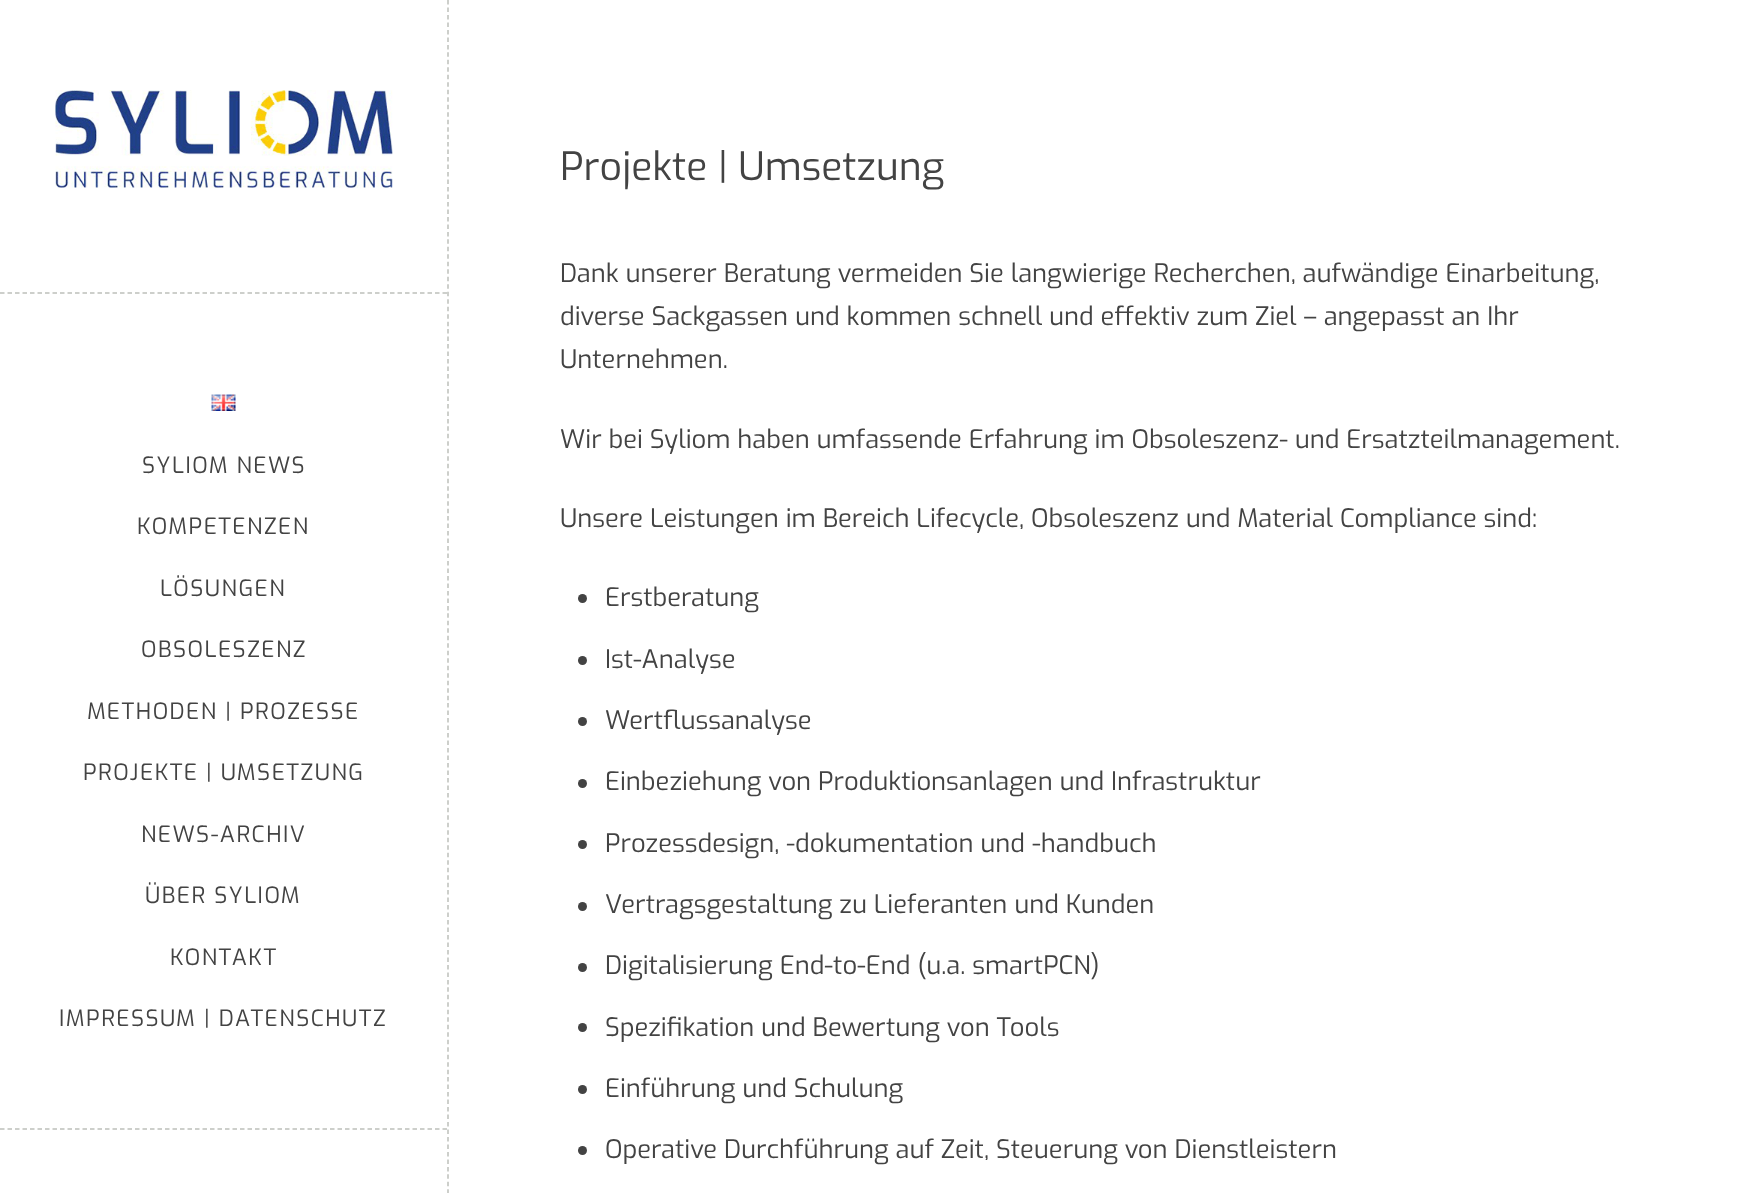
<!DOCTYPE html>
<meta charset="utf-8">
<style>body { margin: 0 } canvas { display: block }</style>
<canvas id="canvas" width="1760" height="1193"></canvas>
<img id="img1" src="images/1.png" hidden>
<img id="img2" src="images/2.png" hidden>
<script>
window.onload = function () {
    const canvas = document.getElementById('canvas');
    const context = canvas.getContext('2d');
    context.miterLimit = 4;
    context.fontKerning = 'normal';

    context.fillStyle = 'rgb(255, 255, 255)';
    context.fillRect(0, 0, 1760, 1193);
    context.beginPath();
    context.moveTo(0, 293);
    context.lineTo(447, 293);
    context.strokeStyle = 'rgb(189, 192, 186)';
    context.lineWidth = 1.5;
    context.setLineDash([4.5, 3]);
    context.stroke();
    context.drawImage(document.getElementById('img1'), 55, 90, 338, 98);
    context.beginPath();
    context.moveTo(0, 1129);
    context.lineTo(447, 1129);
    context.stroke();
    context.drawImage(document.getElementById('img2'), 211, 394, 25, 17);
    context.beginPath();
    context.moveTo(448, 0);
    context.lineTo(448, 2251.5);
    context.setLineDash([4.5, 2.98]);
    context.stroke();
    context.fillStyle = 'rgb(67, 67, 67)';
    context.beginPath();
    context.arc(582.5, 598.5, 4.5, 0, 2 * Math.PI);
    context.fill();
    context.beginPath();
    context.arc(582.5, 660.5, 4.5, 0, 2 * Math.PI);
    context.fill();
    context.beginPath();
    context.arc(582.5, 721.5, 4.5, 0, 2 * Math.PI);
    context.fill();
    context.beginPath();
    context.arc(582.5, 783.5, 4.5, 0, 2 * Math.PI);
    context.fill();
    context.beginPath();
    context.arc(582.5, 844.5, 4.5, 0, 2 * Math.PI);
    context.fill();
    context.beginPath();
    context.arc(582.5, 906.5, 4.5, 0, 2 * Math.PI);
    context.fill();
    context.beginPath();
    context.arc(582.5, 967.5, 4.5, 0, 2 * Math.PI);
    context.fill();
    context.beginPath();
    context.arc(582.5, 1027.5, 4.5, 0, 2 * Math.PI);
    context.fill();
    context.beginPath();
    context.arc(582.5, 1089.5, 4.5, 0, 2 * Math.PI);
    context.fill();
    context.beginPath();
    context.arc(582.5, 1150.5, 4.5, 0, 2 * Math.PI);
    context.fill();
    context.letterSpacing = '1.5px';
    context.font = '22.5px Exo';
    context.fillText('SYLIOM NEWS', 142, 473);
    context.fillText('KOMPETENZEN', 137, 534);
    context.fillText('LÖSUNGEN', 160, 596);
    context.fillText('OBSOLESZENZ', 141, 657);
    context.fillText('METHODEN | PROZESSE', 87, 719);
    context.fillText('PROJEKTE | UMSETZUNG', 83, 780);
    context.fillText('NEWS-ARCHIV', 141, 842);
    context.fillText('ÜBER SYLIOM', 145, 903);
    context.fillText('KONTAKT', 170, 965);
    context.fillText('IMPRESSUM | DATENSCHUTZ', 59, 1026);
    context.letterSpacing = '0px';
    context.font = '39px Exo';
    context.fillText('Projekte | Umsetzung', 560, 180);
    context.font = '25.5px Exo';
    context.fillText('Dank unserer Beratung vermeiden Sie langwierige Recherchen, aufwändige Einarbeitung,', 560, 282);
    context.fillText('diverse Sackgassen und kommen schnell und effektiv zum Ziel – angepasst an Ihr', 560, 325);
    context.fillText('Unternehmen.', 560, 368);
    context.fillText('Wir bei Syliom haben umfassende Erfahrung im Obsoleszenz- und Ersatzteilmanagement.', 560, 448);
    context.fillText('Unsere Leistungen im Bereich Lifecycle, Obsoleszenz und Material Compliance sind:', 560, 527);
    context.fillText('Erstberatung', 605, 606);
    context.fillText('Ist-Analyse', 605, 668);
    context.fillText('Wertflussanalyse', 605, 729);
    context.fillText('Einbeziehung von Produktionsanlagen und Infrastruktur', 605, 790);
    context.fillText('Prozessdesign, -dokumentation und -handbuch', 605, 852);
    context.fillText('Vertragsgestaltung zu Lieferanten und Kunden', 605, 913);
    context.fillText('Digitalisierung End-to-End (u.a. smartPCN)', 605, 974);
    context.fillText('Spezifikation und Bewertung von Tools', 605, 1036);
    context.fillText('Einführung und Schulung', 605, 1097);
    context.fillText('Operative Durchführung auf Zeit, Steuerung von Dienstleistern', 605, 1158);
};
</script>
